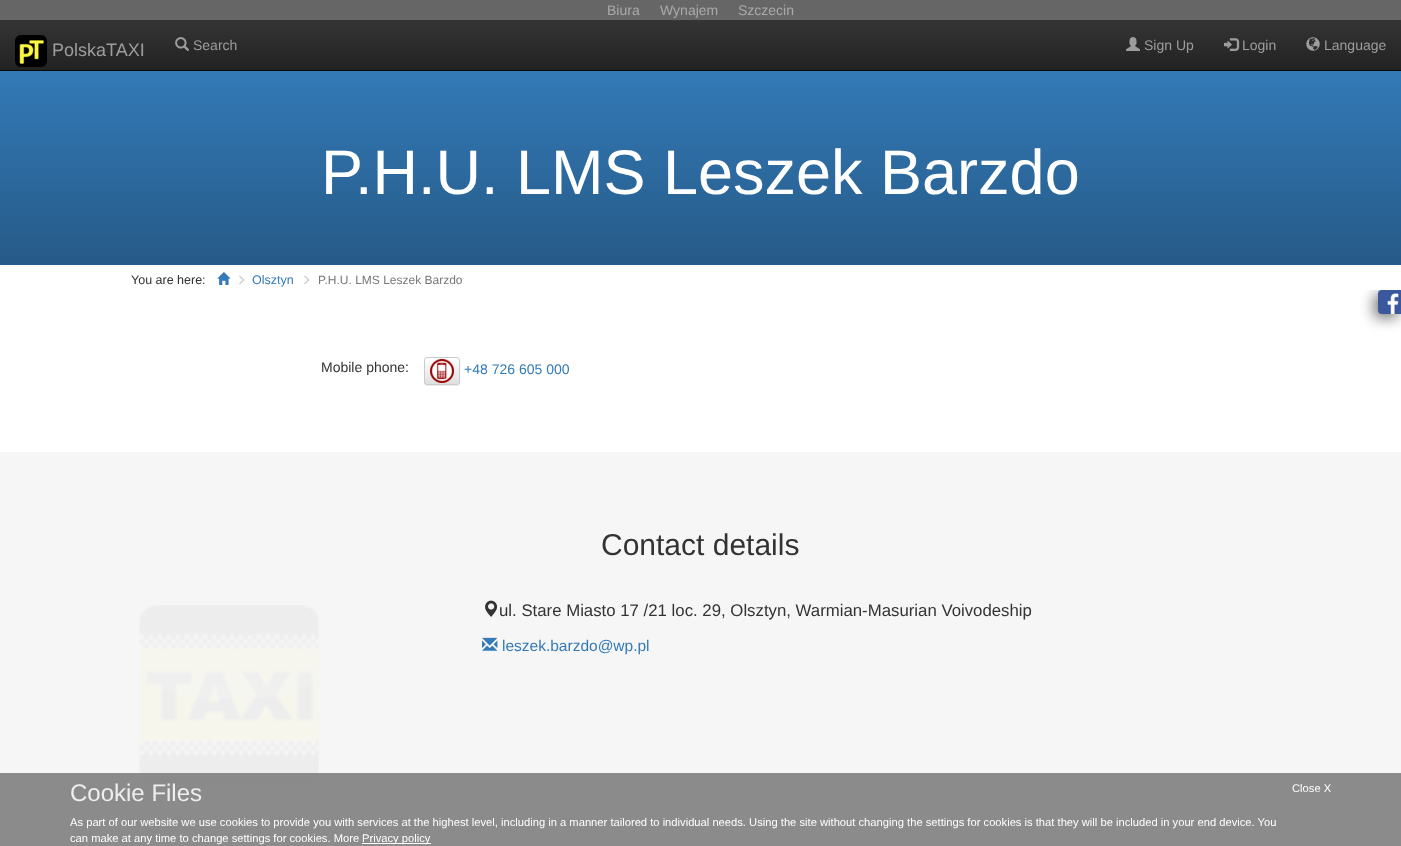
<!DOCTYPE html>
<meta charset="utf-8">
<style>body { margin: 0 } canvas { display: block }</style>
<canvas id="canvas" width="1401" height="846"></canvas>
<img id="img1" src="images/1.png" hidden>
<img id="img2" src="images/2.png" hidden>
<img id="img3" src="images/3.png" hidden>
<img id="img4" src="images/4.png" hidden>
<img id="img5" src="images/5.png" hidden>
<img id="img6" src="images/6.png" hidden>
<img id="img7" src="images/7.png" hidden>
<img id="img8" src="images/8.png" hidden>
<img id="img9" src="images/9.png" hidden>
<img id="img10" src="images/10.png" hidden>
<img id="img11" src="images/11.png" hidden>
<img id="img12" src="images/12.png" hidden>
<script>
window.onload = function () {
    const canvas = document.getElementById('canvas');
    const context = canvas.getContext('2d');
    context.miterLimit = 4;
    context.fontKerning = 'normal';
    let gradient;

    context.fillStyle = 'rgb(255, 255, 255)';
    context.fillRect(0, 0, 1401, 846);
    gradient = context.createLinearGradient(701, 0, 701, 70);
    gradient.addColorStop(0, 'rgb(60, 60, 60)');
    gradient.addColorStop(1, 'rgb(34, 34, 34)');
    context.fillStyle = gradient;
    context.fillRect(0, 20, 1401, 50);
    context.fillStyle = 'rgb(8, 8, 8)';
    context.fillRect(0, 70, 1401, 1);
    context.fillStyle = 'rgb(102, 102, 102)';
    context.fillRect(0, 0, 1401, 20);
    context.drawImage(document.getElementById('img1'), 15, 35, 32, 32);
    context.drawImage(document.getElementById('img2'), 175, 37, 14, 14);
    context.drawImage(document.getElementById('img3'), 1126, 37, 14, 14);
    context.drawImage(document.getElementById('img4'), 1224, 38, 16, 13);
    context.drawImage(document.getElementById('img5'), 1306, 37, 14, 14);
    gradient = context.createLinearGradient(701, 70, 701, 265);
    gradient.addColorStop(0, 'rgb(51, 122, 183)');
    gradient.addColorStop(1, 'rgb(38, 90, 136)');
    context.fillStyle = gradient;
    context.fillRect(0, 71, 1401, 194);
    context.drawImage(document.getElementById('img6'), 217, 272, 14, 13);
    context.drawImage(document.getElementById('img7'), 239, 275, 6, 10);
    context.drawImage(document.getElementById('img7'), 304, 275, 6, 10);
    context.save();
    context.beginPath();
    context.rect(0, 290, 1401, 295);
    context.clip();
    context.fillStyle = 'rgb(119, 119, 119)';
    context.filter = 'blur(7px)';
    context.beginPath();
    context.roundRect(1374, 294, 24, 24, 4);
    context.fill();
    context.filter = 'none';
    context.restore();
    context.drawImage(document.getElementById('img8'), 1378, 290, 23, 24);
    context.fillStyle = 'rgba(0, 0, 0, 0.07)';
    context.filter = 'blur(0.5px)';
    context.beginPath();
    context.roundRect(424, 358, 36, 28, 3);
    context.fill();
    context.filter = 'none';
    context.save();
    context.beginPath();
    context.roundRect(424, 357, 36, 28, 3);
    context.clip();
    gradient = context.createLinearGradient(442, 358, 442, 384);
    gradient.addColorStop(0, 'rgb(255, 255, 255)');
    gradient.addColorStop(1, 'rgb(224, 224, 224)');
    context.fillStyle = gradient;
    context.fillRect(424, 358, 36, 26);
    context.restore();
    context.beginPath();
    context.roundRect(424.5, 357.5, 35, 27, 2.5);
    context.strokeStyle = 'rgb(204, 204, 204)';
    context.stroke();
    context.drawImage(document.getElementById('img9'), 430, 359, 24, 24);
    context.fillStyle = 'rgb(246, 246, 246)';
    context.fillRect(0, 452, 1401, 394);
    context.drawImage(document.getElementById('img10'), 139, 605, 180, 180);
    context.drawImage(document.getElementById('img11'), 485, 600, 13, 17);
    context.drawImage(document.getElementById('img12'), 482, 637, 16, 14);
    context.fillStyle = 'rgba(120, 120, 120, 0.85)';
    context.fillRect(0, 773, 1401, 73);
    context.fillStyle = 'rgb(254, 254, 254)';
    context.fillRect(362, 843, 69, 1);
    context.font = '14px Liberation Sans';
    context.fillStyle = 'rgb(170, 170, 170)';
    context.fillText('Biura', 607, 15);
    context.fillText('Wynajem', 660, 15);
    context.fillText('Szczecin', 738, 15);
    context.font = '18px Liberation Sans';
    context.fillStyle = 'rgb(157, 157, 157)';
    context.fillText('PolskaTAXI', 52, 56);
    context.font = '14px Liberation Sans';
    context.fillText('Search', 193, 50);
    context.fillText('Sign Up', 1144, 50);
    context.fillText('Login', 1242, 50);
    context.fillText('Language', 1324, 50);
    context.font = '63px Liberation Sans';
    context.fillStyle = 'rgb(255, 255, 255)';
    context.fillText('P.H.U. LMS Leszek Barzdo', 321, 194);
    context.font = '12.5px Liberation Sans';
    context.fillStyle = 'rgb(51, 51, 51)';
    context.fillText('You are here:', 131, 284);
    context.fillStyle = 'rgb(51, 122, 183)';
    context.fillText('Olsztyn', 252, 284);
    context.font = '12px Liberation Sans';
    context.fillStyle = 'rgb(119, 119, 119)';
    context.fillText('P.H.U. LMS Leszek Barzdo', 318, 284);
    context.font = '14px Liberation Sans';
    context.fillStyle = 'rgb(51, 51, 51)';
    context.fillText('Mobile phone:', 321, 372);
    context.fillStyle = 'rgb(51, 122, 183)';
    context.fillText('+48 726 605 000', 464, 374);
    context.font = '30px Liberation Sans';
    context.fillStyle = 'rgb(51, 51, 51)';
    context.fillText('Contact details', 601, 555);
    context.font = '16.8px Liberation Sans';
    context.fillText('ul. Stare Miasto 17 /21 loc. 29, Olsztyn, Warmian-Masurian Voivodeship', 499, 616);
    context.font = '15.5px Liberation Sans';
    context.fillStyle = 'rgb(51, 122, 183)';
    context.fillText('leszek.barzdo@wp.pl', 502, 651);
    context.font = '24px Liberation Sans';
    context.fillStyle = 'rgb(238, 238, 238)';
    context.fillText('Cookie Files', 70, 801);
    context.font = '11.2px Liberation Sans';
    context.fillStyle = 'rgb(255, 255, 255)';
    context.fillText('As part of our website we use cookies to provide you with services at the highest level, including in a manner tailored to individual needs. Using the site without changing the settings for cookies is that they will be included in your end device. You', 70, 826);
    context.fillText('can make at any time to change settings for cookies. More', 70, 842);
    context.fillText('Privacy policy', 362, 842);
    context.fillText('Close X', 1292, 792);
};
</script>
